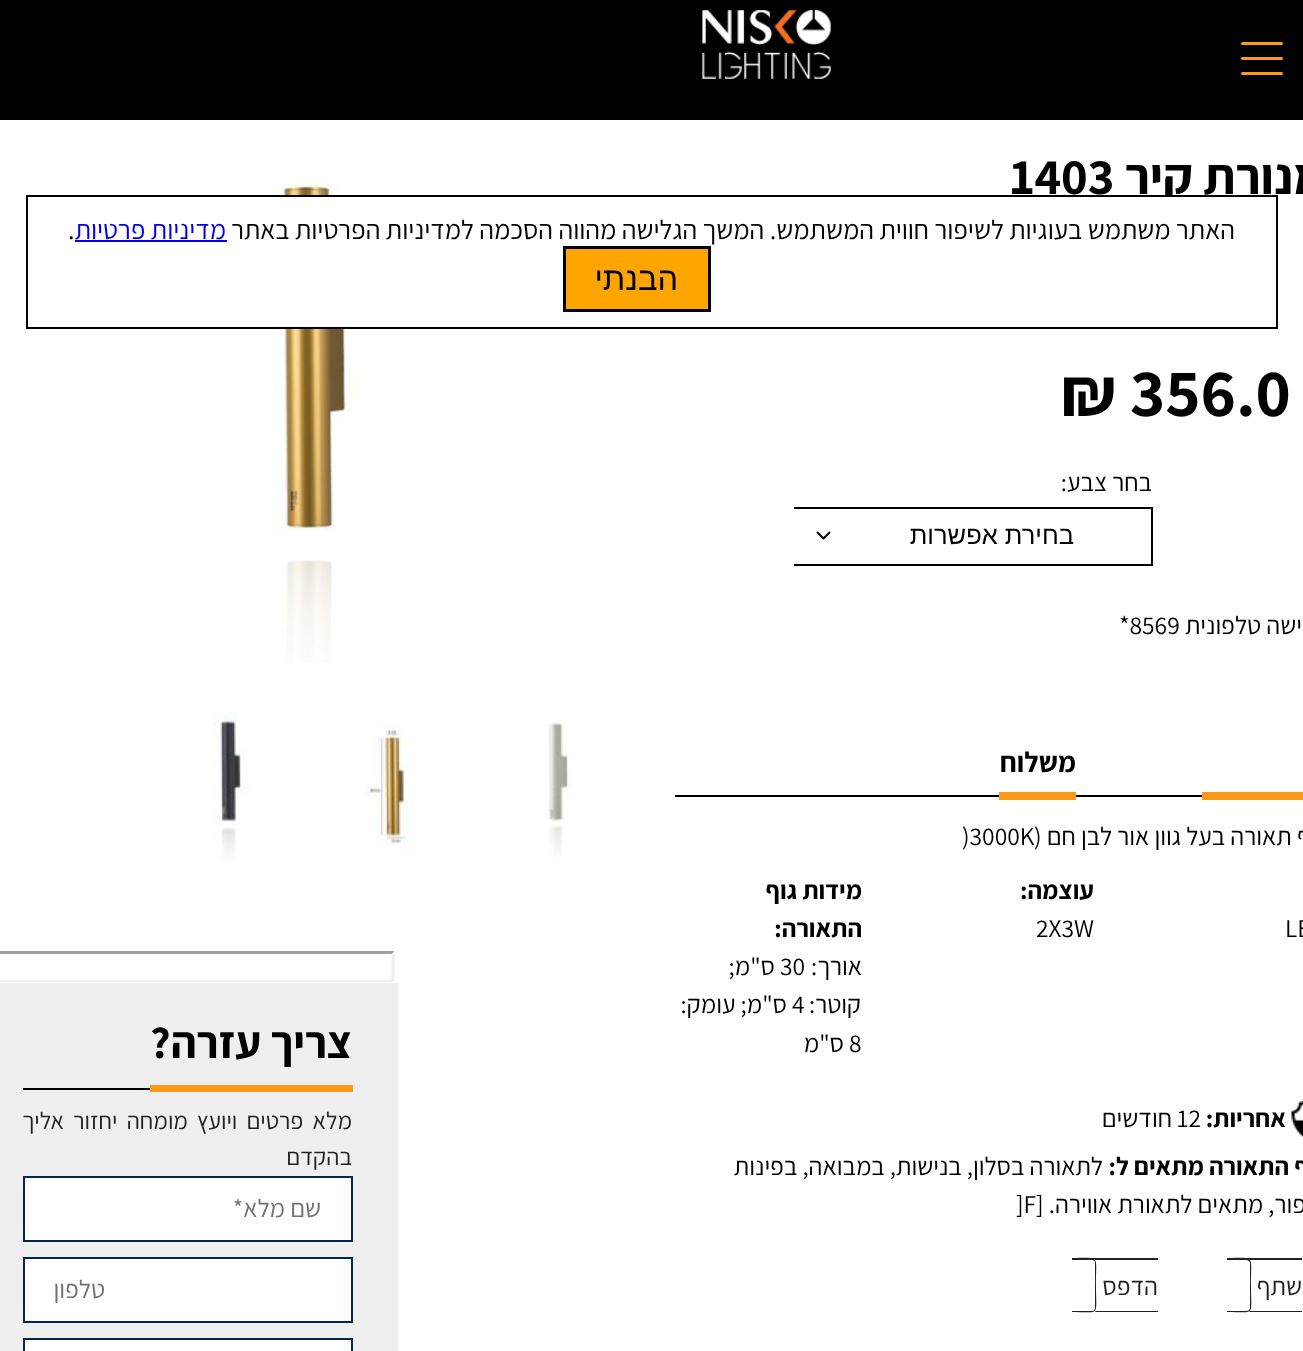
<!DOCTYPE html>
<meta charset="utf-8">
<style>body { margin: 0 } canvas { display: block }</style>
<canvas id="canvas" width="1303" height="1351"></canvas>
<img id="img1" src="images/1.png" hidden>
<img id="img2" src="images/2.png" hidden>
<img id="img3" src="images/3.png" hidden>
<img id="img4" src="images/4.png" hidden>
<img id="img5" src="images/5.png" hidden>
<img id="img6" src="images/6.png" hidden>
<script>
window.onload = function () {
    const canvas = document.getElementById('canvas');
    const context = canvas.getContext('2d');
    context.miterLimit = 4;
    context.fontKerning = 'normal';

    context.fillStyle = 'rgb(255, 255, 255)';
    context.fillRect(0, 0, 1303, 1351);
    context.fillStyle = 'rgb(0, 0, 0)';
    context.fillRect(0, 0, 1303, 120);
    context.drawImage(document.getElementById('img1'), 702, 9, 129, 70);
    context.fillStyle = 'rgb(252, 154, 24)';
    context.beginPath();
    context.roundRect(1241, 57, 42, 3, 1.5);
    context.fill();
    context.beginPath();
    context.roundRect(1241, 42, 42, 3, 1.5);
    context.fill();
    context.beginPath();
    context.roundRect(1241, 72, 42, 3, 1.5);
    context.fill();
    context.beginPath();
    context.moveTo(817.5, 532.5);
    context.lineTo(823.5, 538.5);
    context.lineTo(829.5, 532.5);
    context.strokeStyle = 'rgb(0, 0, 0)';
    context.lineWidth = 2;
    context.lineCap = 'round';
    context.lineJoin = 'round';
    context.stroke();
    context.fillStyle = 'rgb(0, 0, 0)';
    context.fillRect(794, 507, 358, 2);
    context.fillRect(1151, 507, 2, 59);
    context.fillRect(794, 564, 358, 2);
    context.fillStyle = 'rgb(1, 1, 1)';
    context.fillRect(675, 795, 527, 2);
    context.fillStyle = 'rgb(252, 154, 24)';
    context.fillRect(999, 792, 77, 8);
    context.fillRect(1202, 792, 101, 8);
    context.drawImage(document.getElementById('img2'), 1291, 1101, 12, 37);
    context.fillStyle = 'rgb(34, 34, 34)';
    context.beginPath();
    context.moveTo(1238, 1258);
    context.lineTo(1302, 1258);
    context.lineTo(1302, 1312);
    context.lineTo(1238, 1312);
    context.bezierCurveTo(1235, 1312, 1233, 1310, 1233, 1308);
    context.lineTo(1233, 1263);
    context.bezierCurveTo(1233, 1261, 1235, 1258, 1238, 1258);
    context.closePath();
    context.moveTo(1238, 1260);
    context.lineTo(1302, 1260);
    context.lineTo(1302, 1311);
    context.lineTo(1238, 1311);
    context.bezierCurveTo(1236, 1311, 1234, 1310, 1234, 1308);
    context.lineTo(1234, 1263);
    context.bezierCurveTo(1234, 1261, 1236, 1260, 1238, 1260);
    context.closePath();
    context.fill('evenodd');
    context.fillStyle = 'rgb(255, 255, 255)';
    context.beginPath();
    context.roundRect(1227, 1259, 24, 54, [0, 5, 5, 0]);
    context.fill();
    context.fillStyle = 'rgb(34, 34, 34)';
    context.beginPath();
    context.moveTo(1227, 1258);
    context.bezierCurveTo(1256, 1258, 1251, 1254, 1251, 1286);
    context.bezierCurveTo(1251, 1317, 1256, 1312, 1227, 1312);
    context.closePath();
    context.moveTo(1227, 1260);
    context.lineTo(1246, 1260);
    context.bezierCurveTo(1248, 1260, 1250, 1261, 1250, 1263);
    context.lineTo(1250, 1308);
    context.bezierCurveTo(1250, 1310, 1248, 1311, 1246, 1311);
    context.lineTo(1227, 1311);
    context.closePath();
    context.fill('evenodd');
    context.beginPath();
    context.moveTo(1083, 1258);
    context.lineTo(1158, 1258);
    context.lineTo(1158, 1312);
    context.lineTo(1083, 1312);
    context.bezierCurveTo(1081, 1312, 1078, 1310, 1078, 1308);
    context.lineTo(1078, 1263);
    context.bezierCurveTo(1078, 1261, 1081, 1258, 1083, 1258);
    context.closePath();
    context.moveTo(1083, 1260);
    context.lineTo(1158, 1260);
    context.lineTo(1158, 1311);
    context.lineTo(1083, 1311);
    context.bezierCurveTo(1081, 1311, 1080, 1310, 1080, 1308);
    context.lineTo(1080, 1263);
    context.bezierCurveTo(1080, 1261, 1081, 1260, 1083, 1260);
    context.closePath();
    context.fill('evenodd');
    context.fillStyle = 'rgb(255, 255, 255)';
    context.beginPath();
    context.roundRect(1073, 1259, 24, 54, [0, 5, 5, 0]);
    context.fill();
    context.fillStyle = 'rgb(34, 34, 34)';
    context.beginPath();
    context.moveTo(1072, 1258);
    context.bezierCurveTo(1101, 1258, 1096, 1254, 1096, 1286);
    context.bezierCurveTo(1096, 1317, 1101, 1312, 1072, 1312);
    context.closePath();
    context.moveTo(1072, 1260);
    context.lineTo(1092, 1260);
    context.bezierCurveTo(1094, 1260, 1095, 1261, 1095, 1263);
    context.lineTo(1095, 1308);
    context.bezierCurveTo(1095, 1310, 1094, 1311, 1092, 1311);
    context.lineTo(1072, 1311);
    context.closePath();
    context.fill('evenodd');
    context.drawImage(document.getElementById('img3'), 273, 185, 83, 478);
    context.drawImage(document.getElementById('img4'), 545, 722, 29, 135);
    context.drawImage(document.getElementById('img5'), 364, 724, 49, 129);
    context.drawImage(document.getElementById('img6'), 214, 712, 35, 149);
    context.fillStyle = 'rgb(159, 159, 159)';
    context.beginPath();
    context.moveTo(-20, 951);
    context.lineTo(394, 951);
    context.lineTo(392, 954);
    context.lineTo(-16, 954);
    context.closePath();
    context.fill();
    context.fillStyle = 'rgb(239, 239, 239)';
    context.beginPath();
    context.moveTo(394.5, 951);
    context.lineTo(394.5, 982.5);
    context.lineTo(391.5, 979.5);
    context.lineTo(391.5, 954);
    context.closePath();
    context.fill();
    context.beginPath();
    context.moveTo(394, 982);
    context.lineTo(-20, 982);
    context.lineTo(-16, 980);
    context.lineTo(392, 980);
    context.closePath();
    context.fill();
    context.fillRect(0, 983, 398, 368);
    context.fillStyle = 'rgb(1, 1, 1)';
    context.fillRect(23, 1088, 127, 2);
    context.fillStyle = 'rgb(252, 154, 24)';
    context.fillRect(150, 1085, 203, 7);
    context.fillStyle = 'rgb(255, 255, 255)';
    context.beginPath();
    context.rect(24, 1177, 328, 64);
    context.fill();
    context.strokeStyle = 'rgb(7, 35, 80)';
    context.lineJoin = 'miter';
    context.stroke();
    context.beginPath();
    context.rect(24, 1258, 328, 64);
    context.fill();
    context.stroke();
    context.beginPath();
    context.rect(24, 1339, 328, 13);
    context.fill();
    context.stroke();
    context.direction = 'rtl';
    context.font = 'bold 51px Assistant';
    context.fillStyle = 'rgb(1, 1, 1)';
    context.fillText('מנורת קיר', 1326, 194);
    context.direction = 'ltr';
    context.fillText('1403', 1010, 194);
    context.font = 'bold 67.5px Assistant';
    context.fillText('356.0', 1130, 416);
    context.fillText('₪', 1060, 416);
    context.direction = 'rtl';
    context.font = '25.5px Assistant';
    context.fillText('בחר צבע:', 1152, 491);
    context.font = '25.5px Liberation Sans';
    context.fillText('בחירת אפשרות', 1074, 544);
    context.font = '25.5px Assistant';
    context.fillText('רכישה טלפונית', 1326, 634);
    context.direction = 'ltr';
    context.fillText('*8569', 1119, 634);
    context.direction = 'rtl';
    context.font = 'bold 28.5px Assistant';
    context.fillText('משלוח', 1076, 772);
    context.font = '25.5px Assistant';
    context.fillText('גוף תאורה בעל גוון אור לבן חם (', 1326, 845);
    context.direction = 'ltr';
    context.fillText(')3000K', 962, 845);
    context.fillText('LE', 1285, 937);
    context.direction = 'rtl';
    context.font = 'bold 25.5px Assistant';
    context.fillText('עוצמה:', 1094, 899);
    context.direction = 'ltr';
    context.font = '25.5px Assistant';
    context.fillText('2X3W', 1036, 937);
    context.direction = 'rtl';
    context.font = 'bold 25.5px Assistant';
    context.fillText('מידות גוף', 862, 899);
    context.fillText('התאורה:', 862, 937);
    context.font = '25.5px Assistant';
    context.fillText('אורך:', 862, 975);
    context.direction = 'ltr';
    context.fillText('30', 780, 975);
    context.direction = 'rtl';
    context.fillText('ס"מ;', 775, 975);
    context.fillText('קוטר:', 861, 1013);
    context.direction = 'ltr';
    context.fillText('4', 792, 1013);
    context.direction = 'rtl';
    context.fillText('ס"מ; עומק:', 787, 1013);
    context.direction = 'ltr';
    context.fillText('8', 849, 1052);
    context.direction = 'rtl';
    context.fillText('ס"מ', 844, 1052);
    context.font = 'bold 25.5px Assistant';
    context.fillText('אחריות:', 1286, 1127);
    context.direction = 'ltr';
    context.font = '25.5px Assistant';
    context.fillText('12', 1177, 1127);
    context.direction = 'rtl';
    context.fillText('חודשים', 1172, 1127);
    context.font = 'bold 25.5px Assistant';
    context.fillText('גוף התאורה מתאים ל:', 1326, 1175);
    context.font = '25.5px Assistant';
    context.fillText('לתאורה בסלון, בנישות, במבואה, בפינות', 1103, 1175);
    context.fillText('איפור, מתאים לתאורת אווירה. [', 1326, 1213);
    context.direction = 'ltr';
    context.fillText(']F', 1016, 1213);
    context.direction = 'rtl';
    context.fillStyle = 'rgb(34, 34, 34)';
    context.fillText('שתף', 1302, 1295);
    context.fillText('הדפס', 1158, 1295);
    context.font = 'bold 45px Assistant';
    context.fillStyle = 'rgb(1, 1, 1)';
    context.fillText('צריך עזרה?', 352, 1058);
    context.wordSpacing = '4.5px';
    context.font = '24px Assistant';
    context.fillStyle = 'rgb(34, 34, 34)';
    context.fillText('מלא פרטים ויועץ מומחה יחזור אליך', 352, 1129);
    context.wordSpacing = '0px';
    context.fillText('בהקדם', 352, 1165);
    context.font = '25.5px Assistant';
    context.fillStyle = 'rgb(113, 113, 113)';
    context.fillText('שם מלא*', 321, 1217);
    context.fillText('טלפון', 105, 1298);
    context.fillStyle = 'rgb(255, 255, 255)';
    context.fillRect(277, 197, 896, 130);
    context.strokeStyle = 'rgb(0, 0, 0)';
    context.strokeRect(27, 196, 1250, 132);
    context.font = '27px Assistant';
    context.fillStyle = 'rgb(1, 1, 1)';
    context.fillText('האתר משתמש בעוגיות לשיפור חווית המשתמש. המשך הגלישה מהווה הסכמה למדיניות הפרטיות באתר', 1235, 239);
    context.fillStyle = 'rgb(0, 0, 238)';
    context.fillText('מדיניות פרטיות', 226, 239);
    context.fillRect(75, 240, 152, 2);
    context.direction = 'ltr';
    context.fillStyle = 'rgb(1, 1, 1)';
    context.fillText('.', 68, 239);
    context.fillStyle = 'rgb(255, 165, 0)';
    context.beginPath();
    context.rect(564.5, 247.5, 145, 63);
    context.fill();
    context.lineWidth = 3;
    context.stroke();
    context.direction = 'rtl';
    context.font = '32.5px Liberation Sans';
    context.fillStyle = 'rgb(1, 1, 1)';
    context.fillText('הבנתי', 678, 290);
};
</script>
